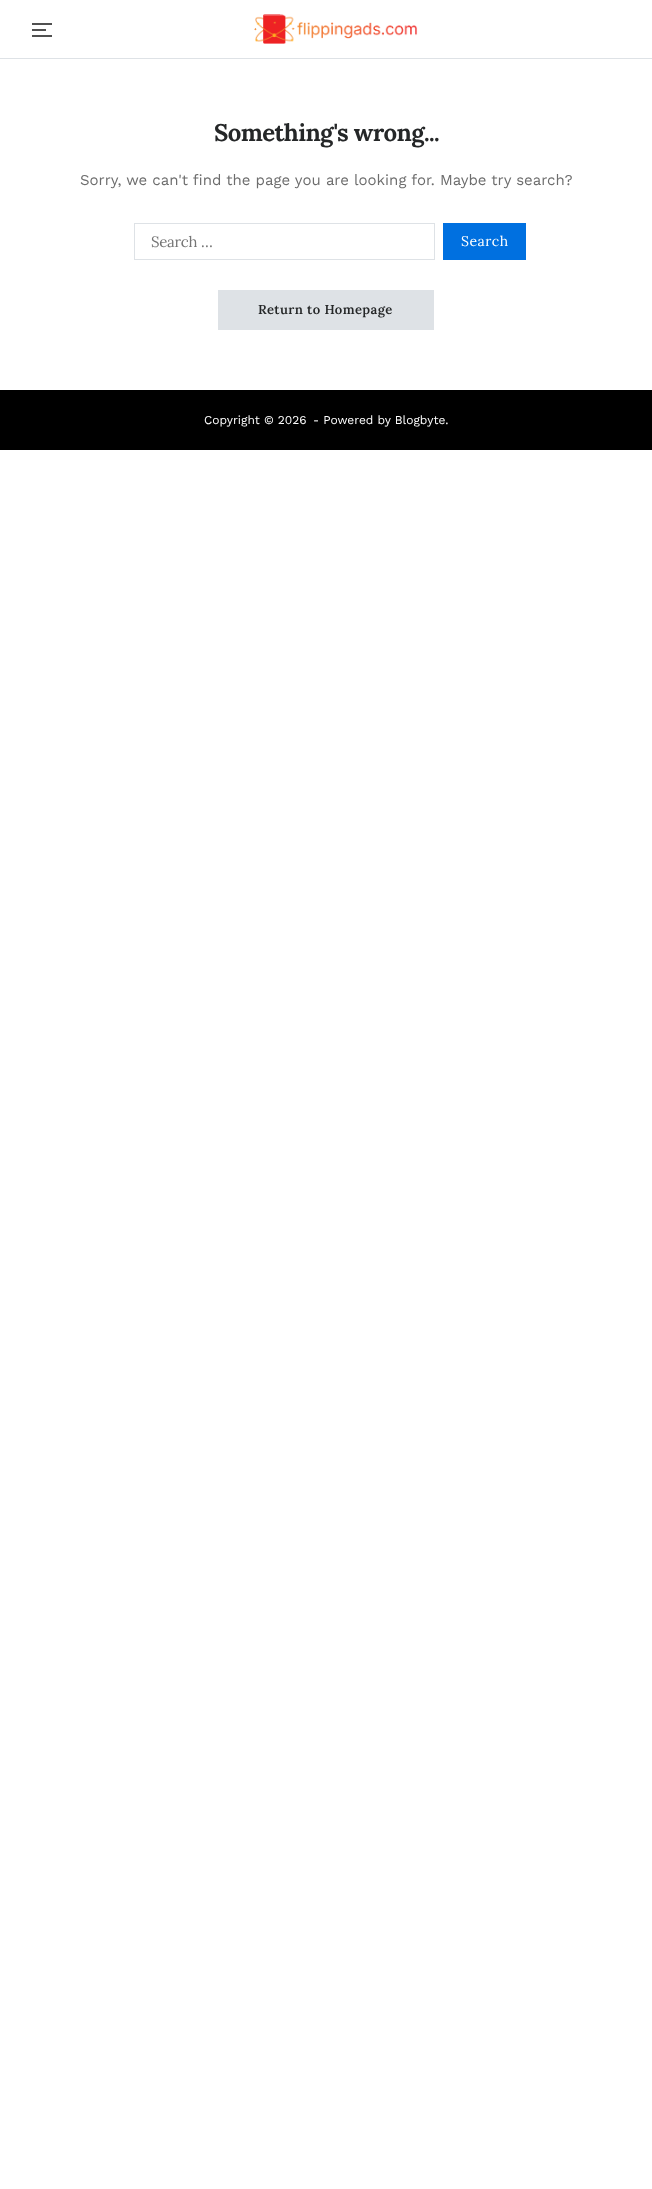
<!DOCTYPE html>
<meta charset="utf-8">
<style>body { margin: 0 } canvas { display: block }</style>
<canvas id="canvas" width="652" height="2189"></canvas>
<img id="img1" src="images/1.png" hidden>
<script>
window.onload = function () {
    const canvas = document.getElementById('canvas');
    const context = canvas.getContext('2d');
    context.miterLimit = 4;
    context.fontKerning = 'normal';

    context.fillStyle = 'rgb(255, 255, 255)';
    context.fillRect(0, 0, 652, 2189);
    context.fillStyle = 'rgb(222, 226, 230)';
    context.fillRect(0, 58, 652, 1);
    context.fillStyle = 'rgb(80, 80, 80)';
    context.fillRect(32, 23, 20, 2);
    context.fillRect(32, 29, 14, 2);
    context.fillRect(32, 35, 20, 2);
    context.drawImage(document.getElementById('img1'), 254, 14, 164, 30);
    context.strokeStyle = 'rgb(222, 226, 230)';
    context.strokeRect(134.5, 223.5, 300, 36);
    context.fillStyle = 'rgb(0, 112, 224)';
    context.fillRect(443, 223, 83, 37);
    context.fillStyle = 'rgb(222, 226, 230)';
    context.fillRect(218, 290, 216, 40);
    context.fillStyle = 'rgb(0, 0, 0)';
    context.fillRect(0, 390, 652, 60);
    context.letterSpacing = '-0.6px';
    context.font = 'bold 24px Lora';
    context.fillStyle = 'rgb(37, 39, 40)';
    context.fillText('Something\'s wrong...', 214, 141);
    context.letterSpacing = '0px';
    context.font = '15px Work Sans';
    context.fillStyle = 'rgb(109, 109, 109)';
    context.fillText('Sorry, we can\'t find the page you are looking for. Maybe try search?', 80, 185);
    context.letterSpacing = '-0.25px';
    context.font = '15px Lora';
    context.fillStyle = 'rgb(117, 117, 117)';
    context.fillText('Search …', 151, 247);
    context.letterSpacing = '0.5px';
    context.font = '14px Lora';
    context.fillStyle = 'rgb(255, 255, 255)';
    context.fillText('Search', 461, 246);
    context.letterSpacing = '0.4px';
    context.font = '600 13px Lora';
    context.fillStyle = 'rgb(37, 39, 40)';
    context.fillText('Return to Homepage', 258, 314);
    context.letterSpacing = '0px';
    context.font = '12px Work Sans';
    context.fillStyle = 'rgb(255, 255, 255)';
    context.fillText('Copyright © 2026', 204, 424);
    context.fillText('- Powered by Blogbyte.', 313, 424);
};
</script>
